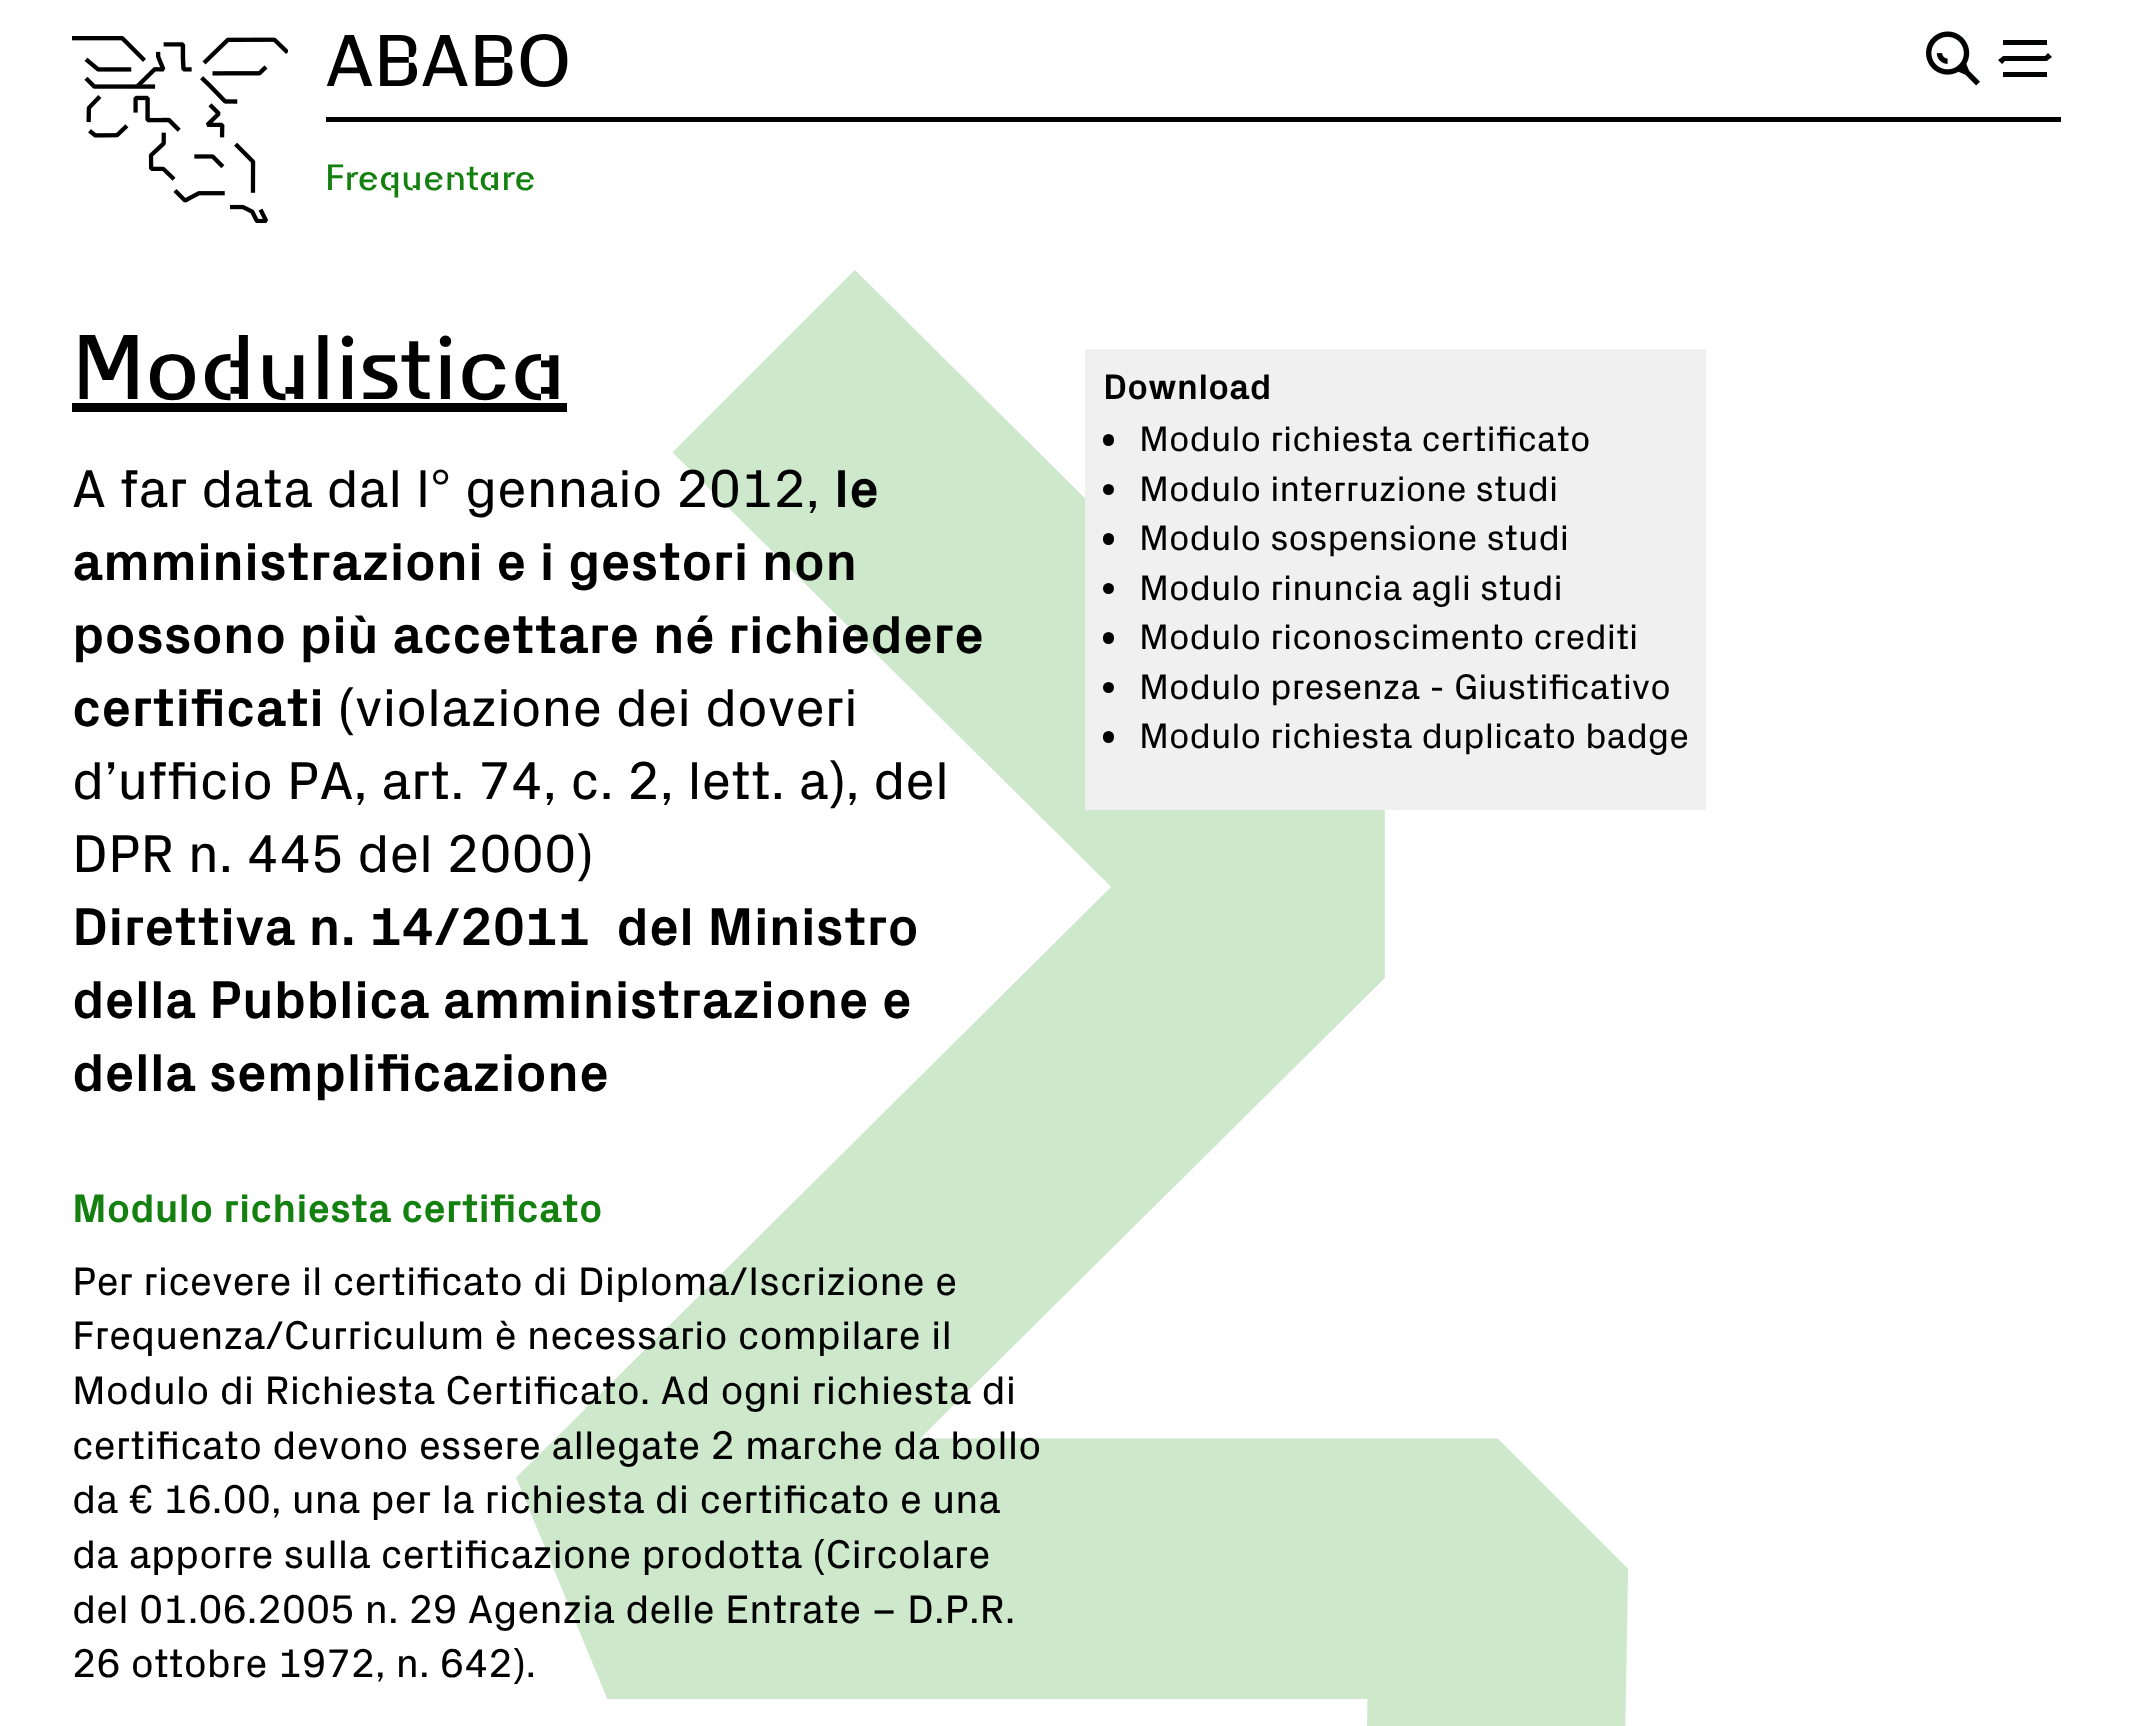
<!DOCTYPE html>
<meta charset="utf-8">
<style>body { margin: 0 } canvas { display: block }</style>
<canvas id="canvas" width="2132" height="1726"></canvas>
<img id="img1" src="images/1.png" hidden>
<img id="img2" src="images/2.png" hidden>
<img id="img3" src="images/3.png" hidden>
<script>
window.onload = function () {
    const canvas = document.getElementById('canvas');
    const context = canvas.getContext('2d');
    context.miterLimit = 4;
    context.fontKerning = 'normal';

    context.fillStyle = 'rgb(255, 255, 255)';
    context.fillRect(0, 0, 2132, 1726);
    context.drawImage(document.getElementById('img1'), 516, 270, 1112, 1456);
    context.drawImage(document.getElementById('img2'), 72, 36, 216, 187);
    context.fillStyle = 'rgb(0, 0, 0)';
    context.fillRect(326, 117, 1735, 5);
    context.drawImage(document.getElementById('img3'), 1926, 31, 54, 55);
    context.fillStyle = 'rgb(1, 2, 2)';
    context.fillRect(2003, 40, 44, 5);
    context.beginPath();
    context.moveTo(2052, 57);
    context.lineTo(2048, 53);
    context.lineTo(2045, 56);
    context.lineTo(2003, 56);
    context.lineTo(2002, 57);
    context.lineTo(1998, 60);
    context.lineTo(2002, 64);
    context.lineTo(2005, 61);
    context.lineTo(2047, 61);
    context.lineTo(2048, 60);
    context.closePath();
    context.fill();
    context.fillRect(2003, 72, 44, 5);
    context.fillStyle = 'rgb(0, 0, 0)';
    context.fillRect(72, 403, 495, 9);
    context.fillStyle = 'rgb(240, 240, 240)';
    context.fillRect(1085, 349, 621, 461);
    context.fillStyle = 'rgb(0, 0, 0)';
    context.beginPath();
    context.roundRect(1103, 434, 11, 12, 5.5);
    context.fill();
    context.beginPath();
    context.arc(1108.5, 489.5, 5.5, 0, 2 * Math.PI);
    context.fill();
    context.beginPath();
    context.roundRect(1103, 533, 11, 12, 5.5);
    context.fill();
    context.beginPath();
    context.arc(1108.5, 588.5, 5.5, 0, 2 * Math.PI);
    context.fill();
    context.beginPath();
    context.roundRect(1103, 632, 11, 12, 5.5);
    context.fill();
    context.beginPath();
    context.arc(1108.5, 687.5, 5.5, 0, 2 * Math.PI);
    context.fill();
    context.beginPath();
    context.roundRect(1103, 731, 11, 12, 5.5);
    context.fill();
    context.font = '72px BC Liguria';
    context.fillText('ABABO', 325, 86);
    context.font = '36px BC Liguria';
    context.fillStyle = 'rgb(19, 128, 16)';
    context.fillText('Frequentare', 325, 190);
    context.font = '90px BC Liguria';
    context.fillStyle = 'rgb(0, 0, 0)';
    context.fillText('Modulistica', 72, 399);
    context.font = '54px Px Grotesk';
    context.fillText('A far data dal l° gennaio 2012,', 72, 507);
    context.font = 'bold 54px Px Grotesk';
    context.fillText('le', 834, 507);
    context.fillText('amministrazioni e i gestori non', 72, 580);
    context.fillText('possono più accettare né richiedere', 72, 653);
    context.fillText('certificati', 72, 726);
    context.font = '54px Px Grotesk';
    context.fillText('(violazione dei doveri', 338, 726);
    context.fillText('d’ufficio PA, art. 74, c. 2, lett. a), del', 72, 799);
    context.fillText('DPR n. 445 del 2000)', 72, 872);
    context.font = 'bold 54px Px Grotesk';
    context.fillText('Direttiva n. 14/2011  del Ministro', 72, 945);
    context.fillText('della Pubblica amministrazione e', 72, 1018);
    context.fillText('della semplificazione', 72, 1091);
    context.font = 'bold 40.5px Px Grotesk';
    context.fillStyle = 'rgb(19, 128, 16)';
    context.fillText('Modulo richiesta certificato', 72, 1222);
    context.font = '40.5px Px Grotesk';
    context.fillStyle = 'rgb(0, 0, 0)';
    context.fillText('Per ricevere il certificato di Diploma/Iscrizione e', 72, 1295);
    context.fillText('Frequenza/Curriculum è necessario compilare il', 72, 1349);
    context.fillText('Modulo di Richiesta Certificato. Ad ogni richiesta di', 72, 1404);
    context.fillText('certificato devono essere allegate 2 marche da bollo', 72, 1459);
    context.fillText('da € 16.00, una per la richiesta di certificato e una', 72, 1513);
    context.fillText('da apporre sulla certificazione prodotta (Circolare', 72, 1568);
    context.fillText('del 01.06.2005 n. 29 Agenzia delle Entrate – D.P.R.', 72, 1623);
    context.fillText('26 ottobre 1972, n. 642).', 72, 1677);
    context.font = 'bold 36px Px Grotesk';
    context.fillText('Download', 1103, 399);
    context.font = '36px Px Grotesk';
    context.fillText('Modulo richiesta certificato', 1139, 451);
    context.fillText('Modulo interruzione studi', 1139, 501);
    context.fillText('Modulo sospensione studi', 1139, 550);
    context.fillText('Modulo rinuncia agli studi', 1139, 600);
    context.fillText('Modulo riconoscimento crediti', 1139, 649);
    context.fillText('Modulo presenza - Giustificativo', 1139, 699);
    context.fillText('Modulo richiesta duplicato badge', 1139, 748);
};
</script>
